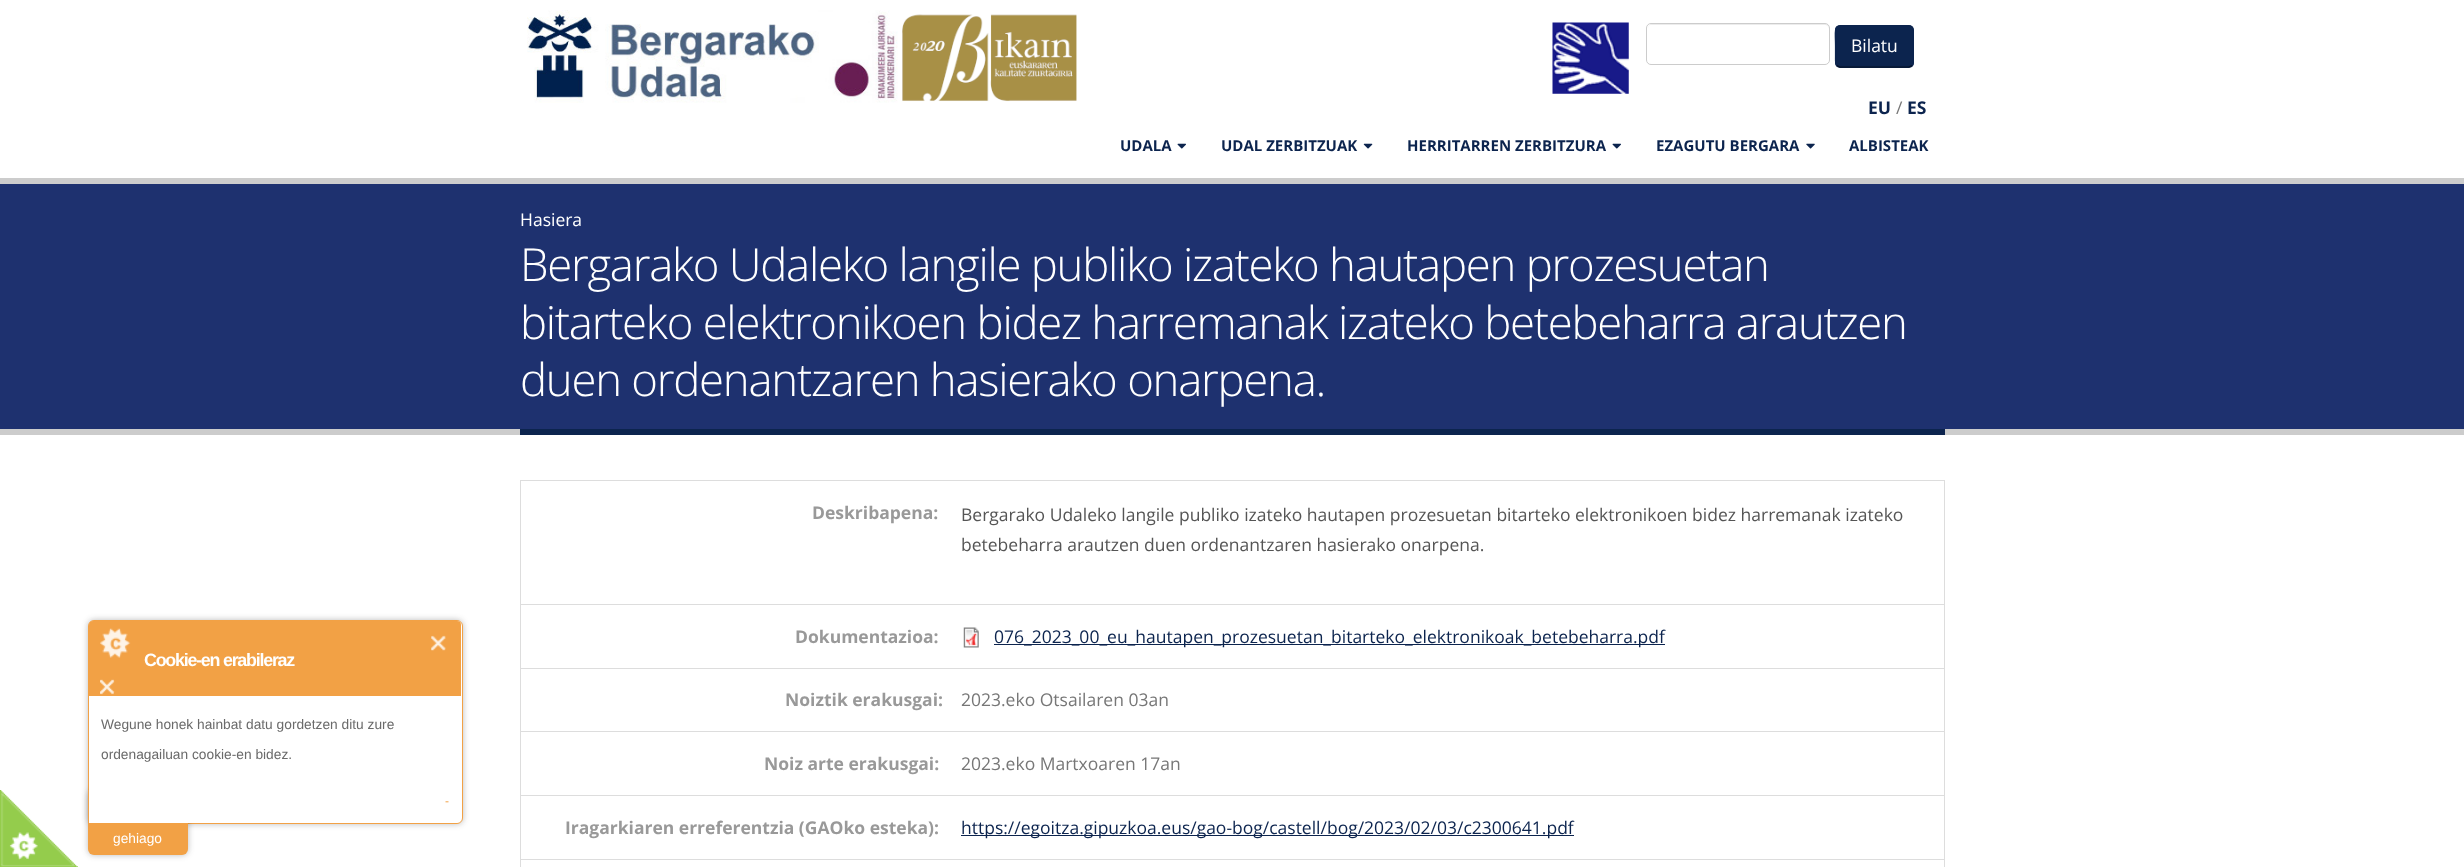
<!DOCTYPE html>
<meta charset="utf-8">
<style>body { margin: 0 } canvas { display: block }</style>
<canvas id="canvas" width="2464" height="867"></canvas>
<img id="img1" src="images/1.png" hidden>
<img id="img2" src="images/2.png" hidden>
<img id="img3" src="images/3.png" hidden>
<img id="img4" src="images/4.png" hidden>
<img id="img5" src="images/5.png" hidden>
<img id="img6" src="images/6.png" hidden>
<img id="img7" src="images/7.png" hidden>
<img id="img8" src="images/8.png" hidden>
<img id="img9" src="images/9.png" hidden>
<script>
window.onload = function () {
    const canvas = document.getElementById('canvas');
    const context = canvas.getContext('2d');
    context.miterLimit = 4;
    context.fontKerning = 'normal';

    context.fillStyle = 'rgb(255, 255, 255)';
    context.fillRect(0, 0, 2464, 867);
    context.drawImage(document.getElementById('img1'), 0, 790, 78, 77);
    context.fillStyle = 'rgba(32, 32, 32, 0.3)';
    context.filter = 'blur(3px)';
    context.beginPath();
    context.roundRect(88, 620, 375, 204, 6);
    context.fill();
    context.filter = 'none';
    context.fillStyle = 'rgb(255, 255, 255)';
    context.beginPath();
    context.roundRect(88.5, 620.5, 374, 203, [5.5, 5.5, 5.5, 0]);
    context.fill();
    context.strokeStyle = 'rgb(242, 161, 69)';
    context.stroke();
    context.fillStyle = 'rgba(32, 32, 32, 0.3)';
    context.filter = 'blur(3px)';
    context.beginPath();
    context.roundRect(88, 790, 100, 65, 6);
    context.fill();
    context.filter = 'none';
    context.fillStyle = 'rgb(242, 161, 69)';
    context.beginPath();
    context.roundRect(88, 790, 100, 65, [0, 0, 6, 6]);
    context.fill();
    context.fillStyle = 'rgb(255, 255, 255)';
    context.beginPath();
    context.roundRect(89, 621, 372, 202, [6, 6, 6, 0]);
    context.fill();
    context.fillStyle = 'rgb(242, 161, 69)';
    context.beginPath();
    context.roundRect(89, 621, 372, 75, [4, 4, 0, 0]);
    context.fill();
    context.drawImage(document.getElementById('img2'), 100, 628, 31, 67);
    context.drawImage(document.getElementById('img3'), 431, 635, 15, 16);
    context.drawImage(document.getElementById('img4'), 527, 10, 550, 93);
    context.drawImage(document.getElementById('img5'), 1552, 22, 77, 72);
    context.fillStyle = 'rgb(236, 236, 236)';
    context.beginPath();
    context.moveTo(1651, 25);
    context.lineTo(1825, 25);
    context.bezierCurveTo(1827, 25, 1829, 27, 1829, 29);
    context.lineTo(1829, 28);
    context.bezierCurveTo(1829, 26, 1827, 24, 1825, 24);
    context.lineTo(1652, 24);
    context.bezierCurveTo(1650, 24, 1648, 26, 1648, 28);
    context.lineTo(1648, 29);
    context.bezierCurveTo(1648, 27, 1649, 25, 1651, 25);
    context.closePath();
    context.fill();
    context.beginPath();
    context.roundRect(1646.5, 23.5, 183, 41, 4.5);
    context.strokeStyle = 'rgb(204, 204, 204)';
    context.stroke();
    context.fillStyle = 'rgb(12, 36, 78)';
    context.beginPath();
    context.roundRect(1835, 25, 79, 43, 5);
    context.fill();
    context.beginPath();
    context.moveTo(1912, 65.5);
    context.lineTo(1909, 67);
    context.lineTo(1839.5, 67);
    context.lineTo(1837, 65.5);
    context.strokeStyle = 'rgb(5, 16, 34)';
    context.lineWidth = 1.2;
    context.stroke();
    context.beginPath();
    context.moveTo(1837, 65.5);
    context.bezierCurveTo(1835, 63.5, 1835.5, 59.5, 1835.5, 57);
    context.lineTo(1835.5, 46);
    context.bezierCurveTo(1835.5, 25, 1831.5, 25.5, 1851.5, 25.5);
    context.lineTo(1897.5, 25.5);
    context.bezierCurveTo(1917.5, 25.5, 1913, 25, 1913, 46);
    context.lineTo(1913, 57);
    context.bezierCurveTo(1913, 59.5, 1914, 63.5, 1912, 65.5);
    context.strokeStyle = 'rgb(12, 36, 78)';
    context.stroke();
    context.drawImage(document.getElementById('img6'), 1177, 143, 9, 6);
    context.drawImage(document.getElementById('img7'), 1363, 143, 10, 6);
    context.drawImage(document.getElementById('img6'), 1612, 143, 9, 6);
    context.drawImage(document.getElementById('img8'), 1806, 143, 9, 6);
    context.fillStyle = 'rgb(30, 49, 111)';
    context.fillRect(0, 184, 2464, 245);
    context.fillStyle = 'rgb(204, 204, 204)';
    context.fillRect(0, 178, 2464, 6);
    context.fillRect(0, 429, 2464, 6);
    context.fillStyle = 'rgb(12, 36, 78)';
    context.fillRect(520, 429, 1425, 6);
    context.fillStyle = 'rgb(221, 221, 221)';
    context.fillRect(1944, 480, 1, 387);
    context.fillRect(520, 480, 1, 387);
    context.fillRect(520, 480, 1425, 1);
    context.fillRect(520, 604, 1425, 1);
    context.drawImage(document.getElementById('img9'), 963, 627, 16, 21);
    context.fillStyle = 'rgb(12, 36, 78)';
    context.fillRect(994, 644, 671, 1);
    context.fillStyle = 'rgb(221, 221, 221)';
    context.fillRect(520, 668, 1425, 1);
    context.fillRect(520, 731, 1425, 1);
    context.fillRect(520, 795, 1425, 1);
    context.fillStyle = 'rgb(12, 36, 78)';
    context.fillRect(961, 835, 613, 1);
    context.fillStyle = 'rgb(221, 221, 221)';
    context.fillRect(520, 859, 1425, 1);
    context.letterSpacing = '-1.25px';
    context.font = 'bold 17.9px Liberation Sans';
    context.fillStyle = 'rgb(255, 255, 255)';
    context.fillText('Cookie-en erabileraz', 144, 666);
    context.letterSpacing = '0px';
    context.font = '13.75px Liberation Sans';
    context.fillStyle = 'rgb(106, 106, 106)';
    context.fillText('Wegune honek hainbat datu gordetzen ditu zure', 101, 729);
    context.fillText('ordenagailuan cookie-en bidez.', 101, 759);
    context.font = '12px Liberation Sans';
    context.fillStyle = 'rgb(242, 161, 69)';
    context.fillText('-', 445, 805);
    context.font = '13.75px Liberation Sans';
    context.fillStyle = 'rgb(255, 255, 255)';
    context.fillText('gehiago', 113, 843);
    context.font = '17.5px Open Sans';
    context.fillText('Bilatu', 1851, 52);
    context.font = 'bold 17.5px Open Sans';
    context.fillStyle = 'rgb(12, 36, 78)';
    context.fillText('EU', 1868, 114);
    context.font = '17.5px Open Sans';
    context.fillStyle = 'rgb(119, 119, 119)';
    context.fillText('/', 1896, 114);
    context.font = 'bold 17.5px Open Sans';
    context.fillStyle = 'rgb(12, 36, 78)';
    context.fillText('ES', 1907, 114);
    context.font = 'bold 15px Open Sans';
    context.fillText('UDALA', 1120, 151);
    context.fillText('UDAL ZERBITZUAK', 1221, 151);
    context.fillText('HERRITARREN ZERBITZURA', 1407, 151);
    context.fillText('EZAGUTU BERGARA', 1656, 151);
    context.fillText('ALBISTEAK', 1849, 151);
    context.font = '17.5px Open Sans';
    context.fillStyle = 'rgb(255, 255, 255)';
    context.fillText('Hasiera', 520, 226);
    context.letterSpacing = '-1.25px';
    context.font = '300 45.5px Open Sans';
    context.fillText('Bergarako Udaleko langile publiko izateko hautapen prozesuetan', 520, 281);
    context.fillText('bitarteko elektronikoen bidez harremanak izateko betebeharra arautzen', 520, 339);
    context.fillText('duen ordenantzaren hasierako onarpena.', 520, 396);
    context.letterSpacing = '0px';
    context.font = 'bold 17.5px Open Sans';
    context.fillStyle = 'rgb(153, 153, 153)';
    context.fillText('Deskribapena:', 812, 519);
    context.font = '17.5px Open Sans';
    context.fillStyle = 'rgb(85, 85, 85)';
    context.fillText('Bergarako Udaleko langile publiko izateko hautapen prozesuetan bitarteko elektronikoen bidez harremanak izateko', 961, 521);
    context.fillText('betebeharra arautzen duen ordenantzaren hasierako onarpena.', 961, 551);
    context.font = 'bold 17.5px Open Sans';
    context.fillStyle = 'rgb(153, 153, 153)';
    context.fillText('Dokumentazioa:', 795, 643);
    context.font = '17.5px Open Sans';
    context.fillStyle = 'rgb(12, 36, 78)';
    context.fillText('076_2023_00_eu_hautapen_prozesuetan_bitarteko_elektronikoak_betebeharra.pdf', 994, 643);
    context.font = 'bold 17.5px Open Sans';
    context.fillStyle = 'rgb(153, 153, 153)';
    context.fillText('Noiztik erakusgai:', 785, 706);
    context.font = '17.5px Open Sans';
    context.fillStyle = 'rgb(119, 119, 119)';
    context.fillText('2023.eko Otsailaren 03an', 961, 706);
    context.font = 'bold 17.5px Open Sans';
    context.fillStyle = 'rgb(153, 153, 153)';
    context.fillText('Noiz arte erakusgai:', 764, 770);
    context.font = '17.5px Open Sans';
    context.fillStyle = 'rgb(119, 119, 119)';
    context.fillText('2023.eko Martxoaren 17an', 961, 770);
    context.font = 'bold 17.5px Open Sans';
    context.fillStyle = 'rgb(153, 153, 153)';
    context.fillText('Iragarkiaren erreferentzia (GAOko esteka):', 565, 834);
    context.font = '17.5px Open Sans';
    context.fillStyle = 'rgb(12, 36, 78)';
    context.fillText('https://egoitza.gipuzkoa.eus/gao-bog/castell/bog/2023/02/03/c2300641.pdf', 961, 834);
};
</script>
